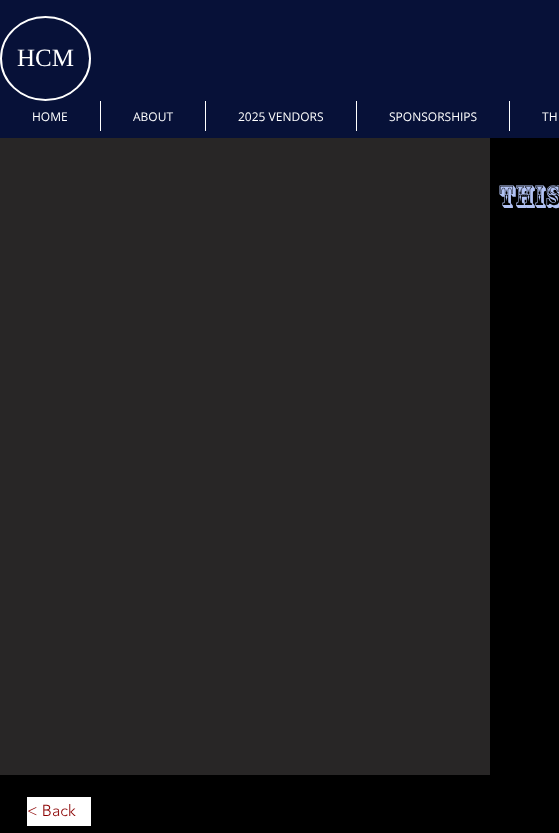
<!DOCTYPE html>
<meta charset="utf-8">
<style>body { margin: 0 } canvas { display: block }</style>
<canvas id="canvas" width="559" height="833"></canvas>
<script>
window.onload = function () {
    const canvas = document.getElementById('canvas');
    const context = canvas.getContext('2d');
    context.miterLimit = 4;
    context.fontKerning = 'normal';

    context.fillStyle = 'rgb(0, 0, 0)';
    context.fillRect(0, 0, 559, 833);
    context.fillStyle = 'rgb(7, 17, 56)';
    context.fillRect(0, 0, 559, 138);
    context.beginPath();
    context.moveTo(45.5, 17);
    context.bezierCurveTo(70, 17, 90, 35.5, 90, 58.5);
    context.bezierCurveTo(90, 81.5, 70, 100, 45.5, 100);
    context.bezierCurveTo(21, 100, 1, 81.5, 1, 58.5);
    context.bezierCurveTo(1, 35.5, 21, 17, 45.5, 17);
    context.closePath();
    context.strokeStyle = 'rgb(255, 255, 255)';
    context.lineWidth = 2;
    context.stroke();
    context.fillStyle = 'rgb(255, 255, 255)';
    context.fillRect(100, 101, 1, 30);
    context.fillRect(205, 101, 1, 30);
    context.fillRect(356, 101, 1, 30);
    context.fillRect(509, 101, 1, 30);
    context.fillStyle = 'rgb(40, 38, 38)';
    context.fillRect(0, 138, 490, 637);
    context.fillStyle = 'rgb(255, 255, 255)';
    context.fillRect(27, 797, 64, 29);
    context.font = '25px Liberation Serif';
    context.fillText('HCM', 17, 66);
    context.font = '12px Open Sans';
    context.fillText('HOME', 32, 121);
    context.fillText('ABOUT', 133, 121);
    context.fillText('2025 VENDORS', 238, 121);
    context.fillText('SPONSORSHIPS', 389, 121);
    context.fillText('TH', 542, 121);
    context.letterSpacing = '0.5px';
    context.font = '30px "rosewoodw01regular"';
    context.fillStyle = 'rgb(178, 194, 243)';
    context.fillText('This', 498, 205);
    context.letterSpacing = '0px';
    context.font = '300 16px "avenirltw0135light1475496"';
    context.fillStyle = 'rgb(139, 0, 0)';
    context.fillText('< Back', 27, 816);
};
</script>
